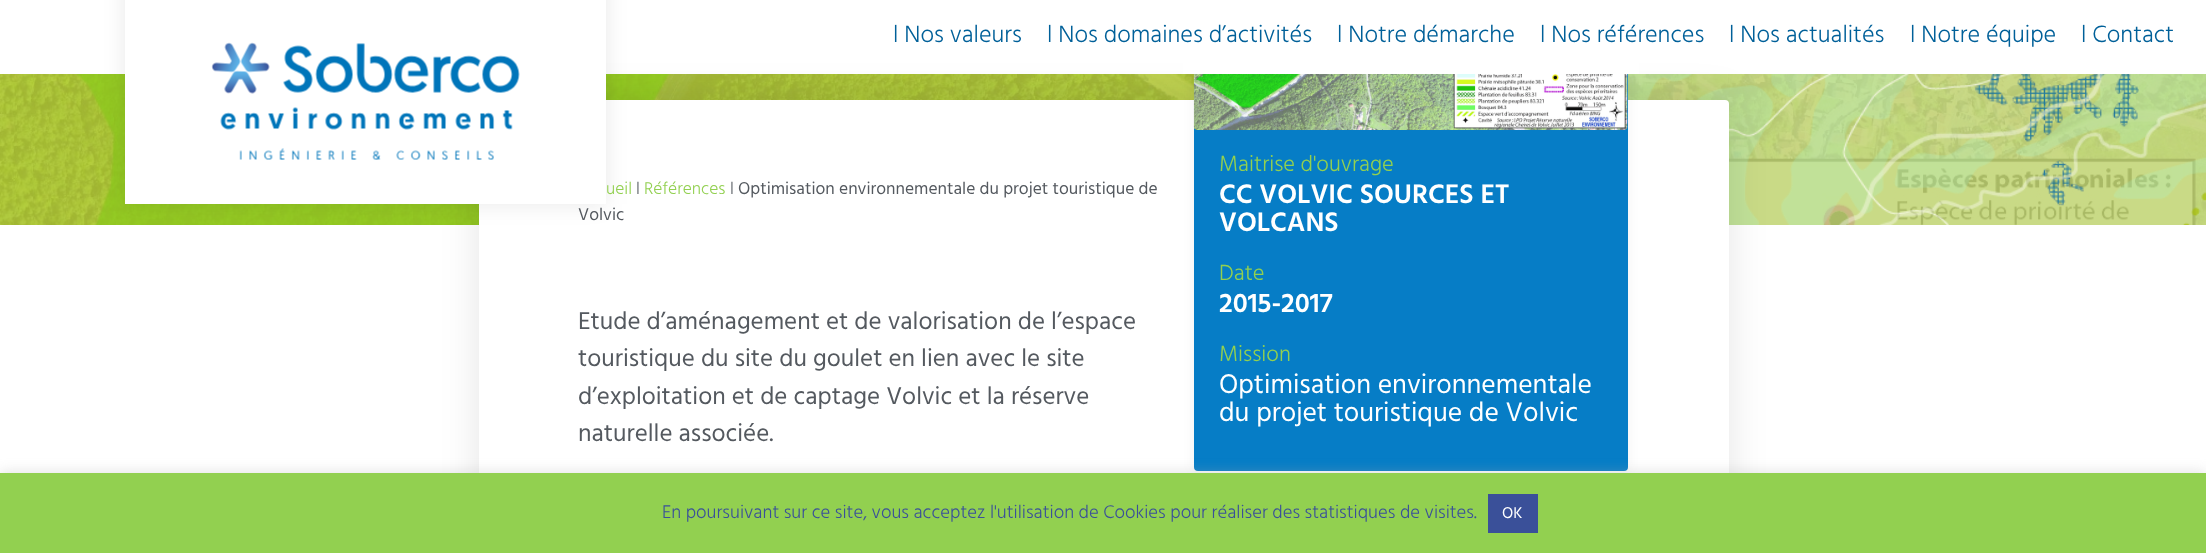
<!DOCTYPE html>
<meta charset="utf-8">
<style>body { margin: 0 } canvas { display: block }</style>
<canvas id="canvas" width="2206" height="553"></canvas>
<img id="img1" src="images/2.png" hidden>
<img id="img2" src="images/3.png" hidden>
<img id="img3" src="images/1.png" hidden>
<img id="img4" src="images/4.png" hidden>
<script>
window.onload = function () {
    const canvas = document.getElementById('canvas');
    const context = canvas.getContext('2d');
    context.miterLimit = 4;
    context.fontKerning = 'normal';

    context.fillStyle = 'rgb(255, 255, 255)';
    context.fillRect(0, 0, 2206, 553);
    context.drawImage(document.getElementById('img1'), 0, 74, 2206, 151);
    context.drawImage(document.getElementById('img2'), 1628, 74, 578, 151);
    context.fillStyle = 'rgba(0, 0, 0, 0.1)';
    context.filter = 'blur(19px)';
    context.beginPath();
    context.roundRect(479, 100, 1250, 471, 4);
    context.fill();
    context.filter = 'none';
    context.fillStyle = 'rgb(255, 255, 255)';
    context.beginPath();
    context.roundRect(479, 100, 1250, 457, 4);
    context.fill();
    context.fillStyle = 'rgba(0, 0, 0, 0.05)';
    context.filter = 'blur(6px)';
    context.beginPath();
    context.roundRect(1194, -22, 434, 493, 4);
    context.fill();
    context.filter = 'none';
    context.fillStyle = 'rgb(6, 125, 198)';
    context.beginPath();
    context.roundRect(1194, -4, 434, 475, 4);
    context.fill();
    context.fillStyle = 'rgb(255, 255, 255)';
    context.fillRect(1183, 0, 456, 74);
    context.fillStyle = 'rgba(0, 0, 0, 0.09)';
    context.filter = 'blur(11px)';
    context.beginPath();
    context.rect(125, -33, 481, 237);
    context.fill();
    context.filter = 'none';
    context.fillStyle = 'rgb(255, 255, 255)';
    context.fillRect(125, 0, 481, 204);
    context.drawImage(document.getElementById('img3'), 211, 42, 309, 118);
    context.drawImage(document.getElementById('img4'), 1193, 74, 435, 56);
    context.fillStyle = 'rgba(172, 171, 171, 0.3)';
    context.filter = 'blur(6px)';
    context.beginPath();
    context.rect(0, 471, 2206, 82);
    context.fill();
    context.filter = 'none';
    context.fillStyle = 'rgb(146, 208, 80)';
    context.fillRect(0, 473, 2206, 80);
    context.fillStyle = 'rgb(58, 80, 153)';
    context.fillRect(1488, 494, 50, 39);
    context.font = '300 24.25px Hind';
    context.fillStyle = 'rgb(0, 96, 153)';
    context.fillText('l Nos valeurs', 893, 42);
    context.fillText('l Nos domaines d’activités', 1047, 42);
    context.fillText('l Notre démarche', 1337, 42);
    context.fillText('l Nos références', 1540, 42);
    context.fillText('l Nos actualités', 1729, 42);
    context.fillText('l Notre équipe', 1910, 42);
    context.fillText('l Contact', 2081, 42);
    context.font = '300 17.5px Hind';
    context.fillStyle = 'rgb(146, 208, 80)';
    context.fillText('ueil', 606, 194);
    context.fillStyle = 'rgb(84, 89, 95)';
    context.fillText('l', 636, 194);
    context.fillStyle = 'rgb(146, 208, 80)';
    context.fillText('Références', 644, 194);
    context.fillStyle = 'rgb(84, 89, 95)';
    context.fillText('l', 730, 194);
    context.font = '17.5px Hind';
    context.fillText('Optimisation environnementale du projet touristique de', 738, 194);
    context.fillText('Volvic', 578, 220);
    context.font = '25px Hind';
    context.fillText('Etude d’aménagement et de valorisation de l’espace', 578, 329);
    context.fillText('touristique du site du goulet en lien avec le site', 578, 366);
    context.fillText('d’exploitation et de captage Volvic et la réserve', 578, 404);
    context.fillText('naturelle associée.', 578, 441);
    context.font = '300 22.5px Hind';
    context.fillStyle = 'rgb(146, 208, 80)';
    context.fillText('Maitrise d\'ouvrage', 1219, 171);
    context.font = '600 27.5px Hind';
    context.fillStyle = 'rgb(255, 255, 255)';
    context.fillText('CC VOLVIC SOURCES ET', 1219, 203);
    context.fillText('VOLCANS', 1219, 231);
    context.font = '300 22.5px Hind';
    context.fillStyle = 'rgb(146, 208, 80)';
    context.fillText('Date', 1219, 280);
    context.font = '600 27.5px Hind';
    context.fillStyle = 'rgb(255, 255, 255)';
    context.fillText('2015-2017', 1219, 312);
    context.font = '300 22.5px Hind';
    context.fillStyle = 'rgb(146, 208, 80)';
    context.fillText('Mission', 1219, 361);
    context.font = '27.5px Hind';
    context.fillStyle = 'rgb(255, 255, 255)';
    context.fillText('Optimisation environnementale', 1219, 393);
    context.fillText('du projet touristique de Volvic', 1219, 421);
    context.font = '300 18.75px Hind';
    context.fillStyle = 'rgb(58, 80, 153)';
    context.fillText('En poursuivant sur ce site, vous acceptez l\'utilisation de Cookies pour réaliser des statistiques de visites.', 662, 518);
    context.font = '16px Hind';
    context.fillStyle = 'rgb(255, 255, 255)';
    context.fillText('OK', 1502, 518);
};
</script>
